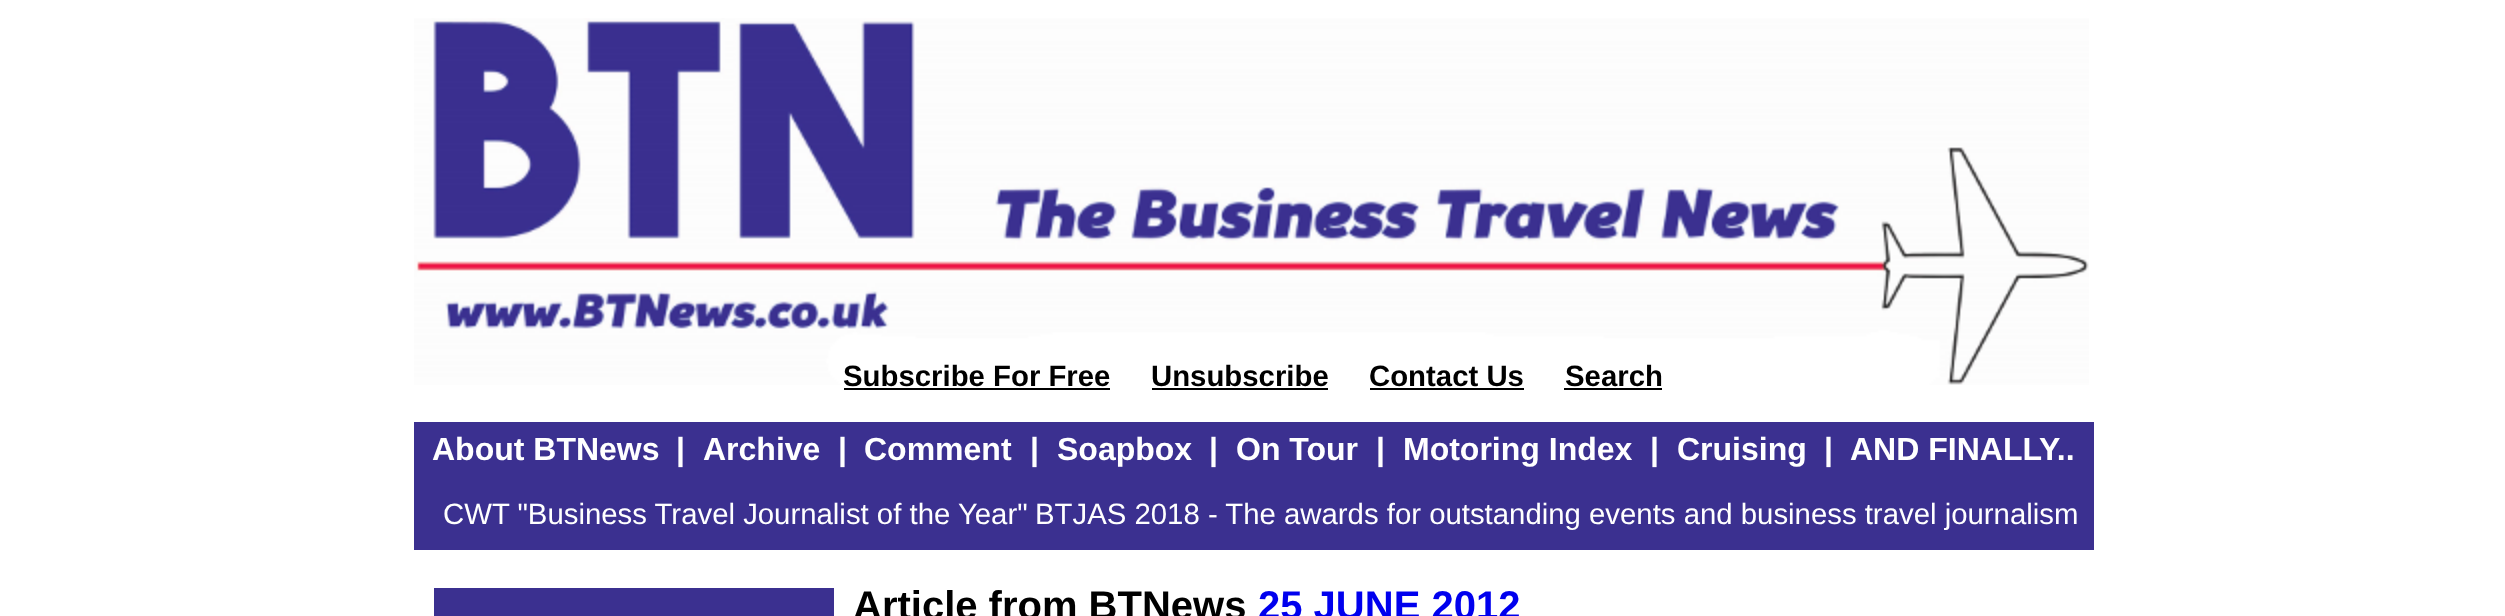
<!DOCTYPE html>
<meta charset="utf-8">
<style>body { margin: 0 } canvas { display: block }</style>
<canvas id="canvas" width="2505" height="616"></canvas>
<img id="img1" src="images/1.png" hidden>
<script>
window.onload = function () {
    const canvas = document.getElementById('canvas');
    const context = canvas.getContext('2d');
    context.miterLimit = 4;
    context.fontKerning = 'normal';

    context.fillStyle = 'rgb(255, 255, 255)';
    context.fillRect(0, 0, 2505, 616);
    context.drawImage(document.getElementById('img1'), 414, 18, 1675, 367);
    context.fillStyle = 'rgb(0, 0, 0)';
    context.fillRect(844, 388, 266, 2);
    context.fillRect(1152, 388, 176, 2);
    context.fillRect(1370, 388, 154, 2);
    context.fillRect(1564, 388, 98, 2);
    context.fillStyle = 'rgb(59, 48, 144)';
    context.fillRect(414, 422, 1680, 128);
    context.fillRect(434, 588, 400, 28);
    context.font = 'bold 29.35px Liberation Sans';
    context.fillStyle = 'rgb(0, 0, 0)';
    context.fillText('Subscribe For Free', 843, 386);
    context.fillText('Unsubscribe', 1151, 386);
    context.fillText('Contact Us', 1369, 386);
    context.fillText('Search', 1565, 386);
    context.font = 'bold 32px Liberation Sans';
    context.fillStyle = 'rgb(255, 255, 255)';
    context.fillText('About BTNews', 432, 460);
    context.fillText('|', 676, 460);
    context.fillText('Archive', 703, 460);
    context.fillText('|', 838, 460);
    context.fillText('Comment', 864, 460);
    context.fillText('|', 1030, 460);
    context.fillText('Soapbox', 1057, 460);
    context.fillText('|', 1209, 460);
    context.fillText('On Tour', 1236, 460);
    context.fillText('|', 1376, 460);
    context.fillText('Motoring Index', 1403, 460);
    context.fillText('|', 1650, 460);
    context.fillText('Cruising', 1677, 460);
    context.fillText('|', 1824, 460);
    context.fillText('AND FINALLY..', 1850, 460);
    context.font = '29.35px Liberation Sans';
    context.fillText('CWT "Business Travel Journalist of the Year"', 443, 524);
    context.fillText('BTJAS 2018 - The awards for outstanding events and business travel journalism', 1035, 524);
    context.font = 'bold 40px Liberation Sans';
    context.fillStyle = 'rgb(0, 0, 0)';
    context.fillText('Article from BTNews', 853, 619);
    context.fillStyle = 'rgb(0, 0, 238)';
    context.fillText('25 JUNE 2012', 1258, 619);
};
</script>
